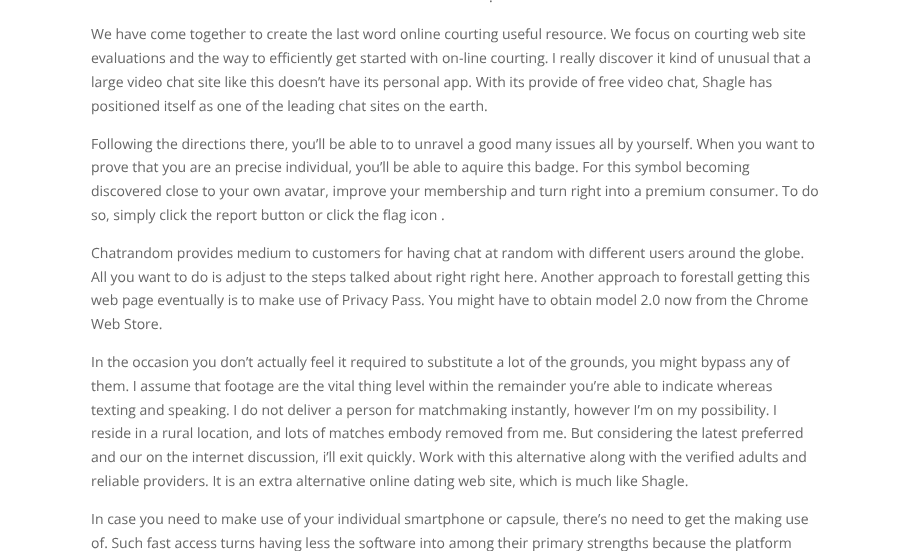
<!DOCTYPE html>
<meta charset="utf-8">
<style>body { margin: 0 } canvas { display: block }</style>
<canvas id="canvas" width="911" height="551"></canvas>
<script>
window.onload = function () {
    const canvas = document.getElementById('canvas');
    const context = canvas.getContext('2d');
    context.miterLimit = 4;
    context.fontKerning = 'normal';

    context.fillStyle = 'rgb(255, 255, 255)';
    context.fillRect(0, 0, 911, 551);
    context.font = '14px Open Sans';
    context.fillStyle = 'rgb(102, 102, 102)';
    context.fillText('.', 489, 2);
    context.fillText('We have come together to create the last word online courting useful resource. We focus on courting web site', 91, 39);
    context.fillText('evaluations and the way to efficiently get started with on-line courting. I really discover it kind of unusual that a', 91, 63);
    context.fillText('large video chat site like this doesn’t have its personal app. With its provide of free video chat, Shagle has', 91, 87);
    context.fillText('positioned itself as one of the leading chat sites on the earth.', 91, 111);
    context.fillText('Following the directions there, you’ll be able to to unravel a good many issues all by yourself. When you want to', 91, 149);
    context.fillText('prove that you are an precise individual, you’ll be able to aquire this badge. For this symbol becoming', 91, 172);
    context.fillText('discovered close to your own avatar, improve your membership and turn right into a premium consumer. To do', 91, 196);
    context.fillText('so, simply click the report button or click the flag icon .', 91, 220);
    context.fillText('Chatrandom provides medium to customers for having chat at random with different users around the globe.', 91, 258);
    context.fillText('All you want to do is adjust to the steps talked about right right here. Another approach to forestall getting this', 91, 282);
    context.fillText('web page eventually is to make use of Privacy Pass. You might have to obtain model 2.0 now from the Chrome', 91, 305);
    context.fillText('Web Store.', 91, 329);
    context.fillText('In the occasion you don’t actually feel it required to substitute a lot of the grounds, you might bypass any of', 91, 367);
    context.fillText('them. I assume that footage are the vital thing level within the remainder you’re able to indicate whereas', 91, 391);
    context.fillText('texting and speaking. I do not deliver a person for matchmaking instantly, however I’m on my possibility. I', 91, 415);
    context.fillText('reside in a rural location, and lots of matches embody removed from me. But considering the latest preferred', 91, 438);
    context.fillText('and our on the internet discussion, i’ll exit quickly. Work with this alternative along with the verified adults and', 91, 462);
    context.fillText('reliable providers. It is an extra alternative online dating web site, which is much like Shagle.', 91, 486);
    context.fillText('In case you need to make use of your individual smartphone or capsule, there’s no need to get the making use', 91, 524);
    context.fillText('of. Such fast access turns having less the software into among their primary strengths because the platform', 91, 548);
};
</script>
